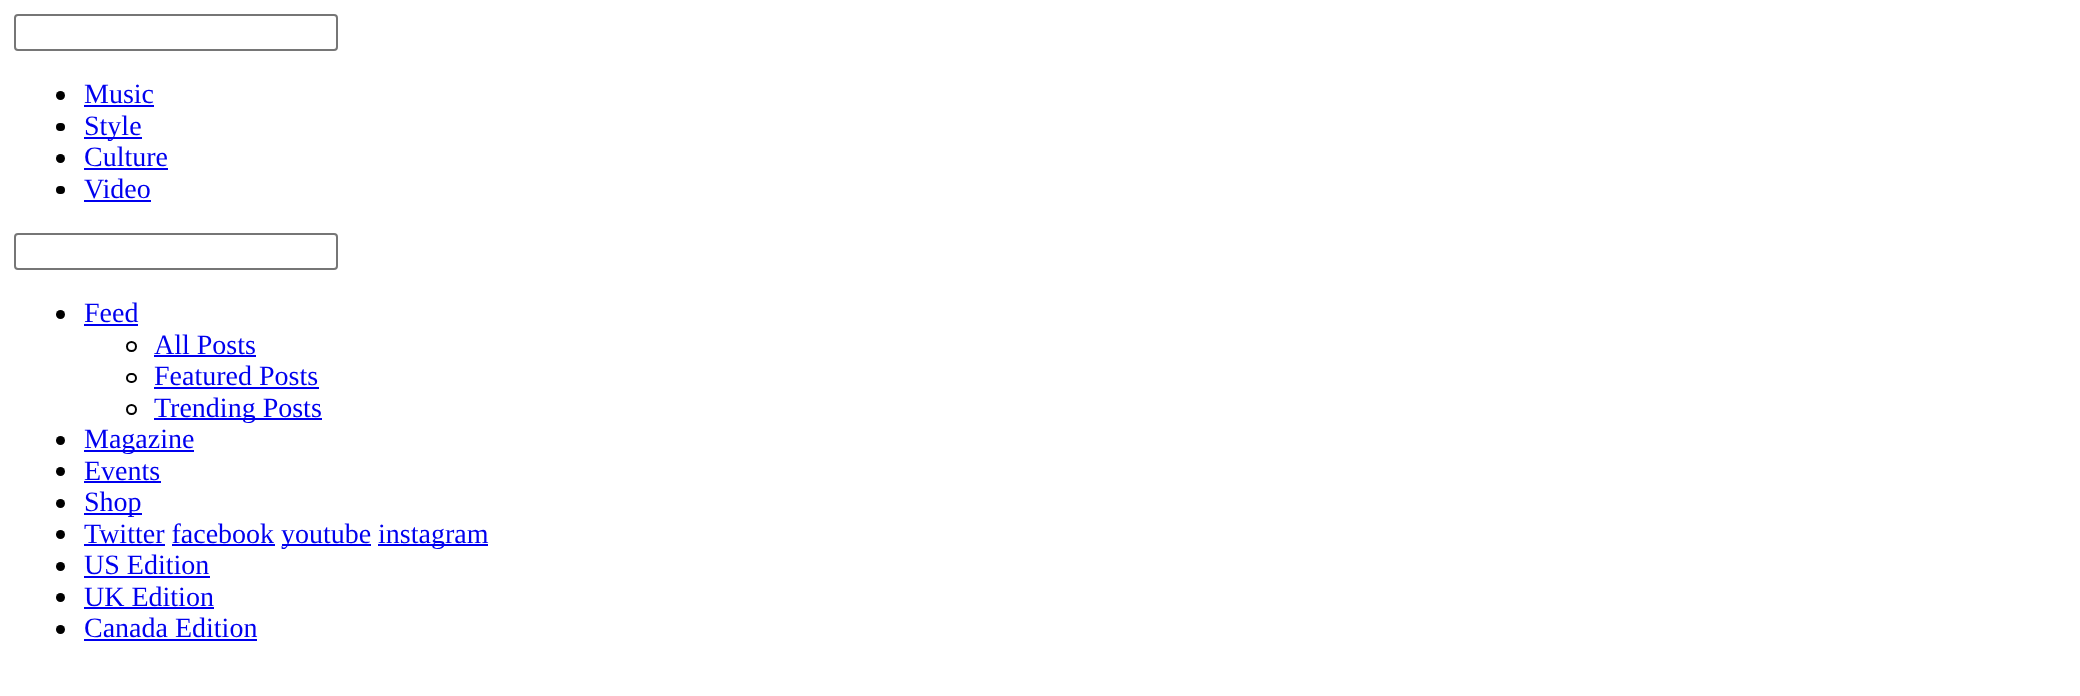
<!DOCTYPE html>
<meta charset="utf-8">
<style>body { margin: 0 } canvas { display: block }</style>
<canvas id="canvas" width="2080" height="696"></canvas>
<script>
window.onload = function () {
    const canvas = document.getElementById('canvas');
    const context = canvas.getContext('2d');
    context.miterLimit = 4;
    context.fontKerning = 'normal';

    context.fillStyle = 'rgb(255, 255, 255)';
    context.fillRect(0, 0, 2080, 696);
    context.beginPath();
    context.roundRect(15, 15, 322, 35, 3);
    context.strokeStyle = 'rgb(118, 118, 118)';
    context.lineWidth = 2;
    context.stroke();
    context.fillStyle = 'rgb(0, 0, 0)';
    context.beginPath();
    context.arc(60.5, 95.5, 4.5, 0, 2 * Math.PI);
    context.fill();
    context.fillStyle = 'rgb(0, 0, 238)';
    context.fillRect(84, 105, 70, 2);
    context.fillStyle = 'rgb(0, 0, 0)';
    context.beginPath();
    context.roundRect(56, 123, 9, 8, 4);
    context.fill();
    context.fillStyle = 'rgb(0, 0, 238)';
    context.fillRect(84, 137, 58, 2);
    context.fillStyle = 'rgb(0, 0, 0)';
    context.beginPath();
    context.arc(60.5, 158.5, 4.5, 0, 2 * Math.PI);
    context.fill();
    context.fillStyle = 'rgb(0, 0, 238)';
    context.fillRect(84, 168, 84, 2);
    context.fillStyle = 'rgb(0, 0, 0)';
    context.beginPath();
    context.roundRect(56, 186, 9, 8, 4);
    context.fill();
    context.fillStyle = 'rgb(0, 0, 238)';
    context.fillRect(84, 200, 67, 2);
    context.beginPath();
    context.roundRect(15, 234, 322, 35, 3);
    context.stroke();
    context.fillStyle = 'rgb(0, 0, 0)';
    context.beginPath();
    context.arc(60.5, 314.5, 4.5, 0, 2 * Math.PI);
    context.fill();
    context.fillStyle = 'rgb(0, 0, 238)';
    context.fillRect(84, 324, 54, 2);
    context.beginPath();
    context.arc(131.5, 346.5, 4.5, 0, 2 * Math.PI);
    context.strokeStyle = 'rgb(0, 0, 0)';
    context.stroke();
    context.fillRect(154, 355, 102, 2);
    context.beginPath();
    context.roundRect(127, 374, 9, 8, 4);
    context.stroke();
    context.fillRect(154, 387, 165, 2);
    context.beginPath();
    context.arc(131.5, 409.5, 4.5, 0, 2 * Math.PI);
    context.stroke();
    context.fillRect(154, 418, 168, 2);
    context.fillStyle = 'rgb(0, 0, 0)';
    context.beginPath();
    context.arc(60.5, 440.5, 4.5, 0, 2 * Math.PI);
    context.fill();
    context.fillStyle = 'rgb(0, 0, 238)';
    context.fillRect(84, 450, 110, 2);
    context.fillStyle = 'rgb(0, 0, 0)';
    context.beginPath();
    context.arc(60.5, 471.5, 4.5, 0, 2 * Math.PI);
    context.fill();
    context.fillStyle = 'rgb(0, 0, 238)';
    context.fillRect(84, 481, 77, 2);
    context.fillStyle = 'rgb(0, 0, 0)';
    context.beginPath();
    context.arc(60.5, 503.5, 4.5, 0, 2 * Math.PI);
    context.fill();
    context.fillStyle = 'rgb(0, 0, 238)';
    context.fillRect(84, 513, 58, 2);
    context.fillStyle = 'rgb(0, 0, 0)';
    context.beginPath();
    context.arc(60.5, 534.5, 4.5, 0, 2 * Math.PI);
    context.fill();
    context.fillStyle = 'rgb(0, 0, 238)';
    context.fillRect(84, 544, 81, 2);
    context.fillRect(282, 544, 89, 2);
    context.fillRect(378, 544, 110, 2);
    context.fillRect(172, 544, 103, 2);
    context.fillStyle = 'rgb(0, 0, 0)';
    context.beginPath();
    context.arc(60.5, 566.5, 4.5, 0, 2 * Math.PI);
    context.fill();
    context.fillStyle = 'rgb(0, 0, 238)';
    context.fillRect(84, 576, 126, 2);
    context.fillStyle = 'rgb(0, 0, 0)';
    context.beginPath();
    context.arc(60.5, 597.5, 4.5, 0, 2 * Math.PI);
    context.fill();
    context.fillStyle = 'rgb(0, 0, 238)';
    context.fillRect(84, 607, 130, 2);
    context.fillStyle = 'rgb(0, 0, 0)';
    context.beginPath();
    context.arc(60.5, 629.5, 4.5, 0, 2 * Math.PI);
    context.fill();
    context.fillStyle = 'rgb(0, 0, 238)';
    context.fillRect(84, 639, 173, 2);
    context.font = '28px Liberation Serif';
    context.fillText('Music', 84, 103);
    context.fillText('Style', 84, 135);
    context.fillText('Culture', 84, 166);
    context.fillText('Video', 84, 198);
    context.fillText('Feed', 84, 322);
    context.fillText('All Posts', 154, 354);
    context.fillText('Featured Posts', 154, 385);
    context.fillText('Trending Posts', 154, 417);
    context.fillText('Magazine', 84, 448);
    context.fillText('Events', 84, 480);
    context.fillText('Shop', 84, 511);
    context.fillText('Twitter facebook', 84, 543);
    context.fillText('youtube', 281, 543);
    context.fillText('instagram', 378, 543);
    context.fillText('US Edition', 84, 574);
    context.fillText('UK Edition', 84, 606);
    context.fillText('Canada Edition', 84, 637);
};
</script>
